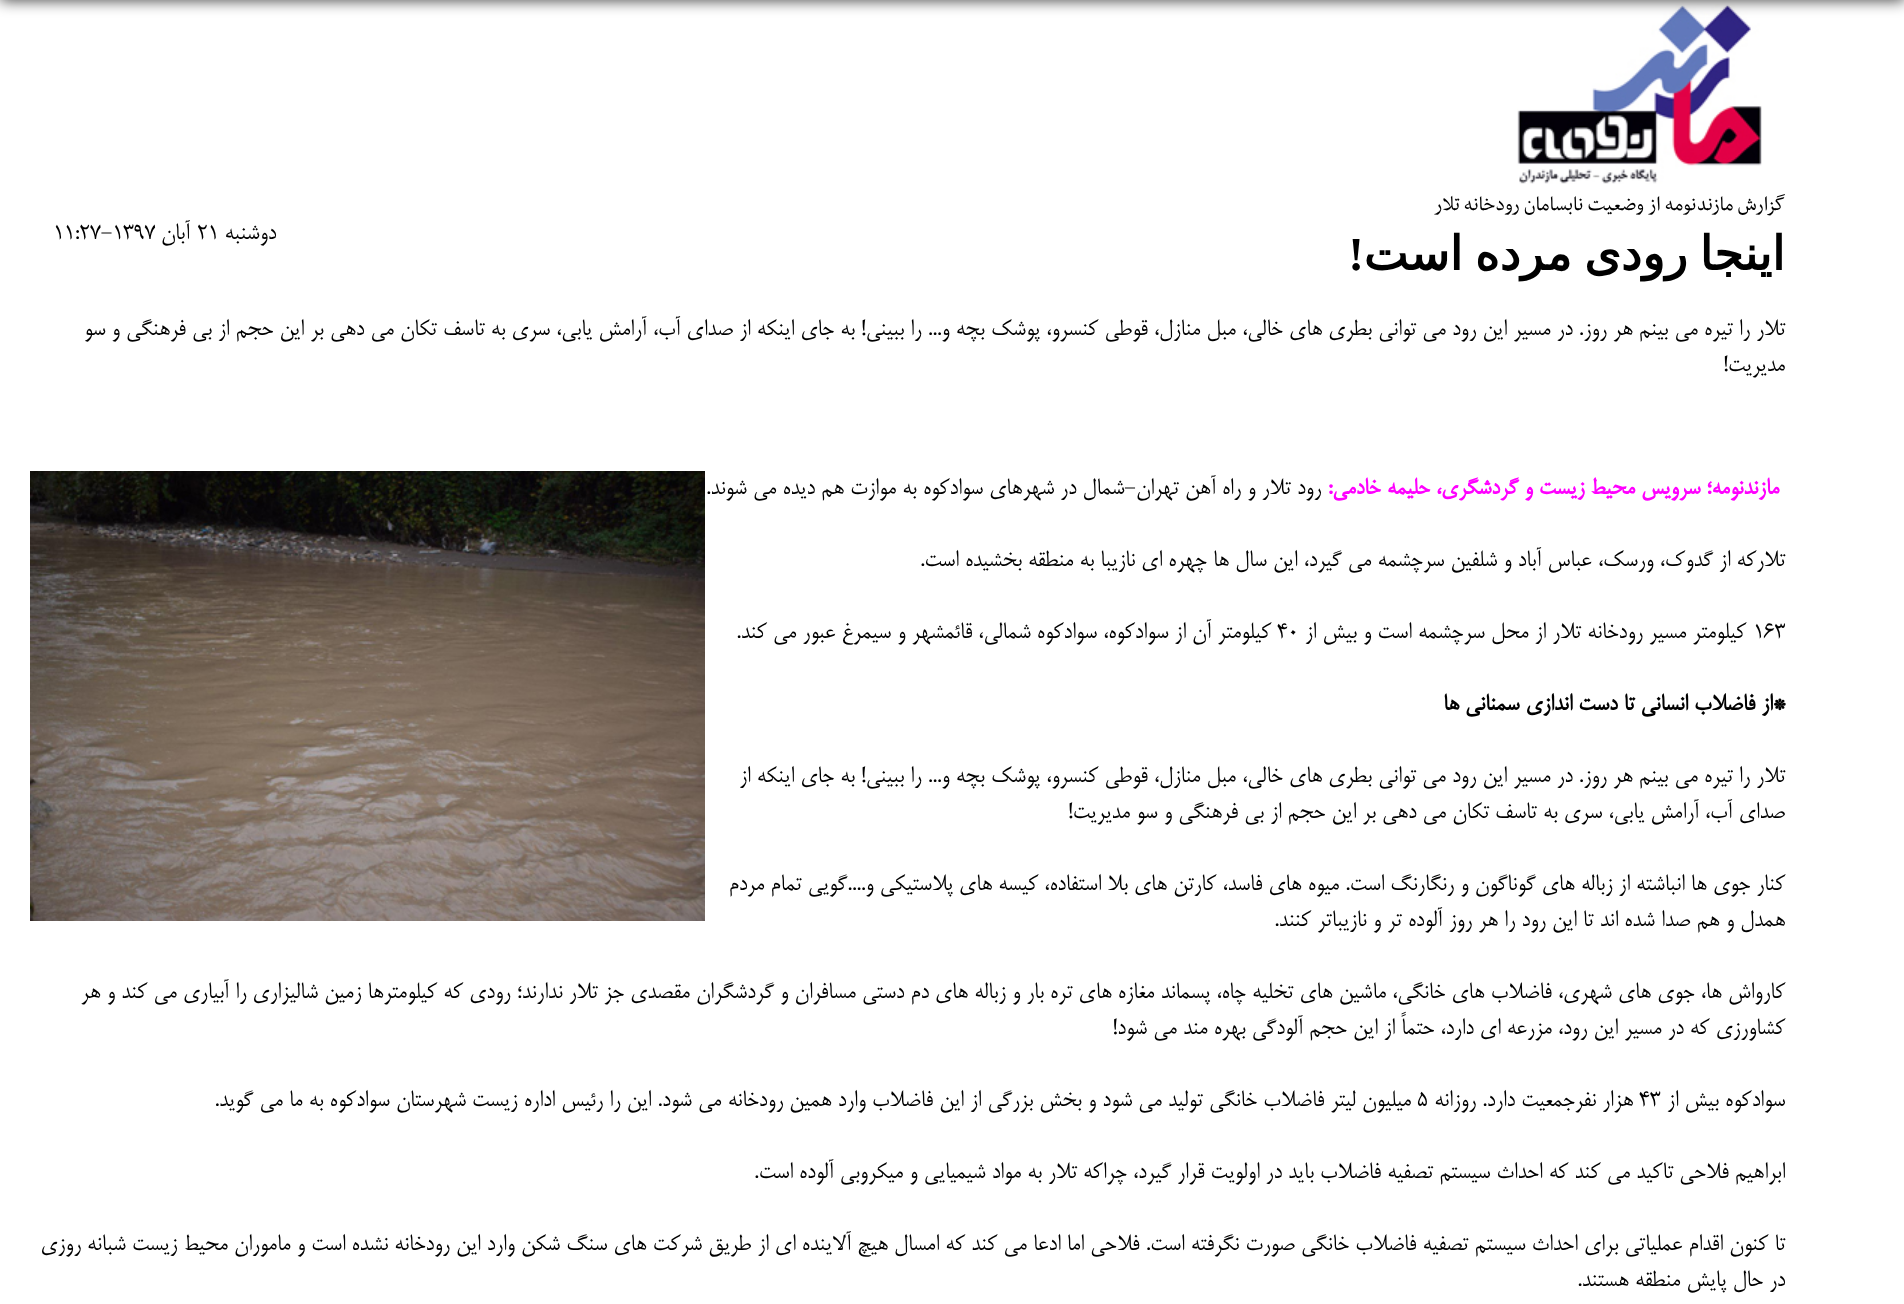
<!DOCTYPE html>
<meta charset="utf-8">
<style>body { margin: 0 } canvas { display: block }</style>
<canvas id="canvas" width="1904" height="1304"></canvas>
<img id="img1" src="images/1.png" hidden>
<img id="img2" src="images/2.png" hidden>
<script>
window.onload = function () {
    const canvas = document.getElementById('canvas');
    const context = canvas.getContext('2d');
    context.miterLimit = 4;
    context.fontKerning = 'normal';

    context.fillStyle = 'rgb(255, 255, 255)';
    context.fillRect(0, 0, 1904, 1304);
    context.drawImage(document.getElementById('img1'), 1517, 4, 245, 180);
    context.fillStyle = 'rgba(0, 0, 0, 0.8)';
    context.filter = 'blur(7.5px)';
    context.beginPath();
    context.rect(0, -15, 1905, 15);
    context.fill();
    context.filter = 'none';
    context.drawImage(document.getElementById('img2'), 30, 471, 675, 450);
    context.direction = 'rtl';
    context.font = '23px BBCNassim';
    context.fillStyle = 'rgb(0, 0, 0)';
    context.fillText('گزارش مازندنومه از وضعیت نابسامان رودخانه تلار', 1785, 210);
    context.wordSpacing = '-3px';
    context.font = 'bold 47.25px DejaVu Sans';
    context.fillText('اینجا رودی مرده است', 1785, 270);
    context.wordSpacing = '0px';
    context.font = 'bold 47.25px Liberation Serif';
    context.fillText('!', 1364, 270);
    context.font = '27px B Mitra';
    context.fillText('دوشنبه', 276, 239);
    context.direction = 'ltr';
    context.fillText('21', 197, 239);
    context.direction = 'rtl';
    context.fillText('آبان', 190, 239);
    context.direction = 'ltr';
    context.fillText('11:27-1397', 53, 239);
    context.direction = 'rtl';
    context.fillText('تلار را تیره می بینم هر روز. در مسیر این رود می توانی بطری های خالی، مبل منازل، قوطی کنسرو، پوشک بچه و... را ببینی! به جای اینکه از صدای آب، آرامش یابی، سری به تاسف تکان می دهی بر این حجم از بی فرهنگی و سو', 1785, 335);
    context.fillText('مدیریت!', 1785, 371);
    context.font = 'bold 27px B Mitra';
    context.fillStyle = 'rgb(255, 0, 255)';
    context.fillText('مازندنومه؛ سرویس محیط زیست و گردشگری، حلیمه خادمی:', 1779, 494);
    context.font = '27px B Mitra';
    context.fillStyle = 'rgb(0, 0, 0)';
    context.fillText('رود تلار و راه آهن تهران-شمال در شهرهای سوادکوه به موازت هم دیده می شوند.', 1321, 494);
    context.fillText('تلارکه از گدوک، ورسک، عباس آباد و شلفین سرچشمه می گیرد، این سال ها چهره ای نازیبا به منطقه بخشیده است.', 1785, 566);
    context.direction = 'ltr';
    context.fillText('163', 1753, 638);
    context.direction = 'rtl';
    context.fillText('کیلومتر مسیر رودخانه تلار از محل سرچشمه است و بیش از', 1746, 638);
    context.direction = 'ltr';
    context.fillText('40', 1277, 638);
    context.direction = 'rtl';
    context.fillText('کیلومتر آن از سوادکوه، سوادکوه شمالی، قائمشهر و سیمرغ عبور می کند.', 1271, 638);
    context.font = 'bold 27px B Mitra';
    context.fillText('*از فاضلاب انسانی تا دست اندازی سمنانی ها', 1785, 710);
    context.font = '27px B Mitra';
    context.fillText('تلار را تیره می بینم هر روز. در مسیر این رود می توانی بطری های خالی، مبل منازل، قوطی کنسرو، پوشک بچه و... را ببینی! به جای اینکه از', 1785, 782);
    context.fillText('صدای آب، آرامش یابی، سری به تاسف تکان می دهی بر این حجم از بی فرهنگی و سو مدیریت!', 1785, 818);
    context.fillText('کنار جوی ها انباشته از زباله های گوناگون و رنگارنگ است. میوه های فاسد، کارتن های بلا استفاده، کیسه های پلاستیکی و....گویی تمام مردم', 1785, 890);
    context.fillText('همدل و هم صدا شده اند تا این رود را هر روز آلوده تر و نازیباتر کنند.', 1785, 926);
    context.fillText('کارواش ها، جوی های شهری، فاضلاب های خانگی، ماشین های تخلیه چاه، پسماند مغازه های تره بار و زباله های دم دستی مسافران و گردشگران مقصدی جز تلار ندارند؛ رودی که کیلومترها زمین شالیزاری را آبیاری می کند و هر', 1785, 998);
    context.fillText('کشاورزی که در مسیر این رود، مزرعه ای دارد، حتماً از این حجم آلودگی بهره مند می شود!', 1785, 1034);
    context.fillText('سوادکوه بیش از', 1785, 1106);
    context.direction = 'ltr';
    context.fillText('43', 1639, 1106);
    context.direction = 'rtl';
    context.fillText('هزار نفرجمعیت دارد. روزانه', 1633, 1106);
    context.direction = 'ltr';
    context.fillText('5', 1417, 1106);
    context.direction = 'rtl';
    context.fillText('میلیون لیتر فاضلاب خانگی تولید می شود و بخش بزرگی از این فاضلاب وارد همین رودخانه می شود. این را رئیس اداره زیست شهرستان سوادکوه به ما می گوید.', 1411, 1106);
    context.fillText('ابراهیم فلاحی تاکید می کند که احداث سیستم تصفیه فاضلاب باید در اولویت قرار گیرد، چراکه تلار به مواد شیمیایی و میکروبی آلوده است.', 1785, 1178);
    context.fillText('تا کنون اقدام عملیاتی برای احداث سیستم تصفیه فاضلاب خانگی صورت نگرفته است. فلاحی اما ادعا می کند که امسال هیچ آلاینده ای از طریق شرکت های سنگ شکن وارد این رودخانه نشده است و ماموران محیط زیست شبانه روزی', 1785, 1250);
    context.fillText('در حال پایش منطقه هستند.', 1785, 1286);
};
</script>
